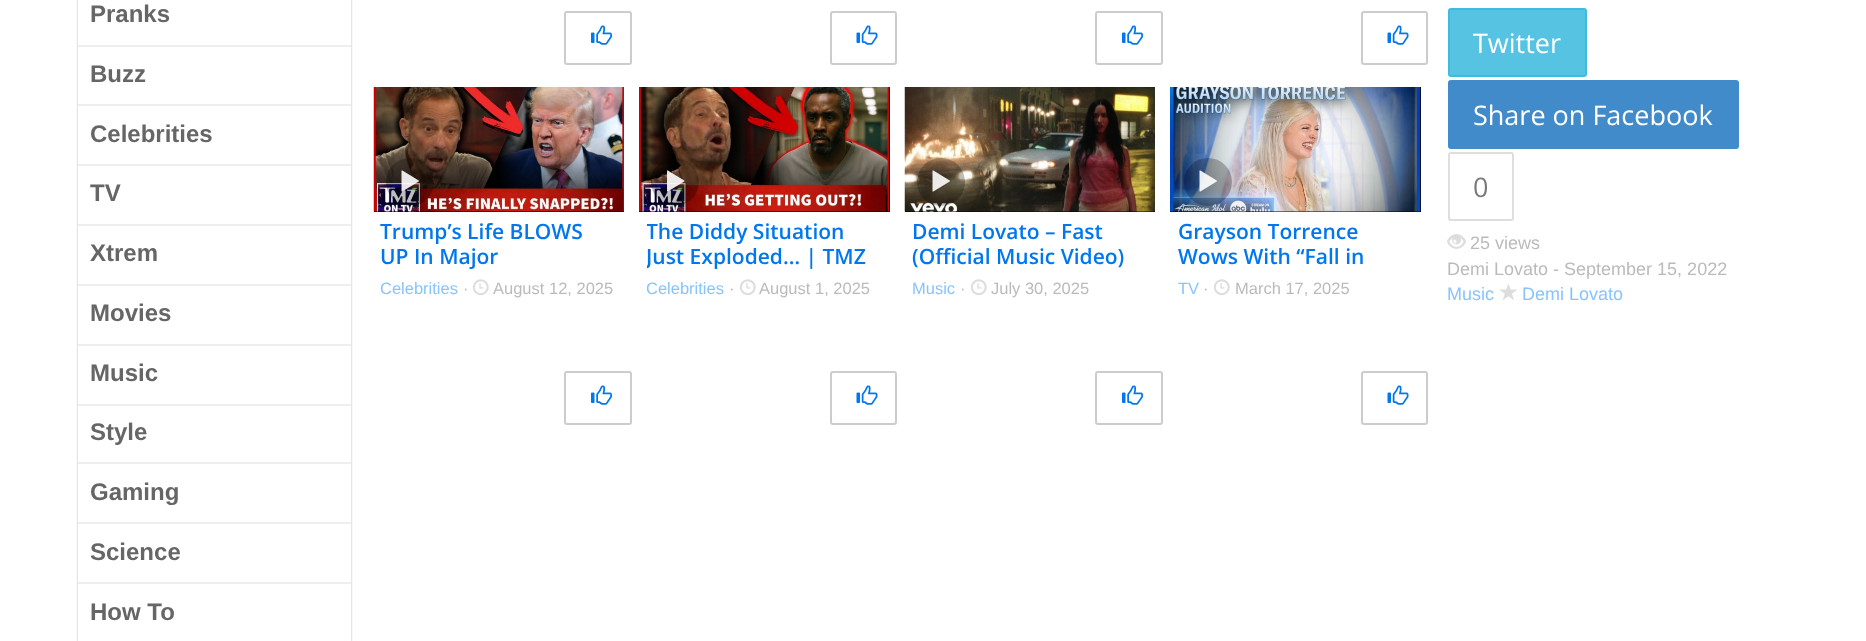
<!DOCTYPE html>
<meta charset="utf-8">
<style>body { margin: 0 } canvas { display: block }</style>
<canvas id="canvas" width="1866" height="641"></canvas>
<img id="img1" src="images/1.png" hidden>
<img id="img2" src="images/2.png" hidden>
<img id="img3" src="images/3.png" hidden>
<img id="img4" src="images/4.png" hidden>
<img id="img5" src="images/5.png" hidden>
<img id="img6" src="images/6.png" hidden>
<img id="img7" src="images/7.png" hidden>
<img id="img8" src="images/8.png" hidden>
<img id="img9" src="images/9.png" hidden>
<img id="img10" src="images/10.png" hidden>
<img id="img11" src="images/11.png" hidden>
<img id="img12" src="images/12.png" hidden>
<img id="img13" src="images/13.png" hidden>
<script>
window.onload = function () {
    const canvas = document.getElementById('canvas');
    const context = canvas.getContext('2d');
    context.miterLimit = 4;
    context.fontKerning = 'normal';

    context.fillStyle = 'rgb(255, 255, 255)';
    context.fillRect(0, 0, 1866, 641);
    context.save();
    context.beginPath();
    context.moveTo(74, 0);
    context.lineTo(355, 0);
    context.lineTo(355, 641);
    context.lineTo(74, 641);
    context.closePath();
    context.moveTo(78, -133);
    context.lineTo(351, -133);
    context.lineTo(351, 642);
    context.lineTo(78, 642);
    context.closePath();
    context.clip('evenodd');
    context.fillStyle = 'rgba(0, 0, 0, 0.3)';
    context.filter = 'blur(1px)';
    context.beginPath();
    context.rect(78, -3, 273, 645);
    context.fill();
    context.filter = 'none';
    context.restore();
    context.fillStyle = 'rgb(238, 238, 238)';
    context.fillRect(78, 45, 273, 2);
    context.fillRect(78, 104, 273, 2);
    context.fillRect(78, 164, 273, 2);
    context.fillRect(78, 224, 273, 2);
    context.fillRect(78, 284, 273, 2);
    context.fillRect(78, 344, 273, 2);
    context.fillRect(78, 404, 273, 2);
    context.fillRect(78, 462, 273, 2);
    context.fillRect(78, 522, 273, 2);
    context.fillRect(78, 582, 273, 2);
    context.beginPath();
    context.roundRect(565, 12, 66, 52, 2);
    context.strokeStyle = 'rgb(204, 204, 204)';
    context.lineWidth = 2;
    context.stroke();
    context.drawImage(document.getElementById('img1'), 591, 25, 21, 20);
    context.beginPath();
    context.roundRect(831, 12, 65, 52, 2);
    context.stroke();
    context.drawImage(document.getElementById('img2'), 856, 25, 22, 20);
    context.beginPath();
    context.roundRect(1096, 12, 66, 52, 2);
    context.stroke();
    context.drawImage(document.getElementById('img1'), 1122, 25, 21, 20);
    context.beginPath();
    context.roundRect(1362, 12, 65, 52, 2);
    context.stroke();
    context.drawImage(document.getElementById('img2'), 1387, 25, 22, 20);
    context.fillStyle = 'rgb(0, 0, 0)';
    context.fillRect(374, 211, 250, 1);
    context.drawImage(document.getElementById('img3'), 373, 87, 251, 125);
    context.fillStyle = 'rgba(0, 0, 0, 0.25)';
    context.beginPath();
    context.arc(410, 182, 24, 0, 2 * Math.PI);
    context.fill();
    context.drawImage(document.getElementById('img4'), 401, 170, 18, 22);
    context.drawImage(document.getElementById('img5'), 472, 279, 17, 17);
    context.beginPath();
    context.roundRect(565, 372, 66, 52, 2);
    context.stroke();
    context.drawImage(document.getElementById('img1'), 591, 385, 21, 20);
    context.fillStyle = 'rgb(0, 0, 0)';
    context.fillRect(639, 87, 251, 125);
    context.drawImage(document.getElementById('img6'), 639, 87, 251, 125);
    context.fillStyle = 'rgba(0, 0, 0, 0.25)';
    context.beginPath();
    context.arc(675, 182, 24, 0, 2 * Math.PI);
    context.fill();
    context.drawImage(document.getElementById('img7'), 667, 170, 18, 22);
    context.drawImage(document.getElementById('img5'), 739, 279, 17, 17);
    context.beginPath();
    context.roundRect(831, 372, 65, 52, 2);
    context.stroke();
    context.drawImage(document.getElementById('img2'), 856, 385, 22, 20);
    context.fillStyle = 'rgb(0, 0, 0)';
    context.fillRect(905, 211, 250, 1);
    context.drawImage(document.getElementById('img8'), 904, 87, 251, 125);
    context.fillStyle = 'rgba(0, 0, 0, 0.25)';
    context.beginPath();
    context.arc(941, 182, 24, 0, 2 * Math.PI);
    context.fill();
    context.drawImage(document.getElementById('img9'), 932, 170, 18, 22);
    context.drawImage(document.getElementById('img5'), 970, 279, 17, 17);
    context.beginPath();
    context.roundRect(1096, 372, 66, 52, 2);
    context.stroke();
    context.drawImage(document.getElementById('img1'), 1122, 385, 21, 20);
    context.fillStyle = 'rgb(0, 0, 0)';
    context.fillRect(1170, 87, 251, 125);
    context.drawImage(document.getElementById('img10'), 1170, 87, 251, 125);
    context.fillStyle = 'rgba(0, 0, 0, 0.25)';
    context.beginPath();
    context.arc(1208, 182, 24, 0, 2 * Math.PI);
    context.fill();
    context.drawImage(document.getElementById('img11'), 1199, 170, 18, 22);
    context.drawImage(document.getElementById('img5'), 1213, 279, 17, 17);
    context.beginPath();
    context.roundRect(1362, 372, 65, 52, 2);
    context.stroke();
    context.drawImage(document.getElementById('img2'), 1387, 385, 22, 20);
    context.fillStyle = 'rgb(86, 195, 227)';
    context.beginPath();
    context.roundRect(1449, 9, 137, 67, 2);
    context.fill();
    context.strokeStyle = 'rgb(64, 187, 223)';
    context.stroke();
    context.fillStyle = 'rgb(66, 139, 202)';
    context.beginPath();
    context.roundRect(1449, 81, 289, 67, 2);
    context.fill();
    context.strokeStyle = 'rgb(66, 139, 202)';
    context.stroke();
    context.beginPath();
    context.roundRect(1449, 153, 64, 67, 2);
    context.strokeStyle = 'rgb(222, 222, 222)';
    context.stroke();
    context.drawImage(document.getElementById('img12'), 1447, 234, 19, 15);
    context.drawImage(document.getElementById('img13'), 1499, 284, 18, 16);
    context.font = 'bold 24px Liberation Sans';
    context.fillStyle = 'rgb(102, 102, 102)';
    context.fillText('Pranks', 90, 22);
    context.fillText('Buzz', 90, 82);
    context.fillText('Celebrities', 90, 142);
    context.fillText('TV', 90, 201);
    context.fillText('Xtrem', 90, 261);
    context.fillText('Movies', 90, 321);
    context.fillText('Music', 90, 381);
    context.fillText('Style', 90, 440);
    context.fillText('Gaming', 90, 500);
    context.fillText('Science', 90, 560);
    context.fillText('How To', 90, 620);
    context.font = '600 21px Open Sans';
    context.fillStyle = 'rgb(0, 119, 238)';
    context.fillText('Trump’s Life BLOWS', 380, 239);
    context.fillText('UP In Major', 380, 264);
    context.font = '16.5px Liberation Sans';
    context.fillStyle = 'rgb(136, 195, 255)';
    context.fillText('Celebrities', 380, 294);
    context.fillStyle = 'rgb(187, 187, 187)';
    context.fillText('·', 463, 294);
    context.fillText('August 12, 2025', 493, 294);
    context.save();
    context.beginPath();
    context.rect(647, 219, 235, 51);
    context.clip();
    context.font = '600 21px Open Sans';
    context.fillStyle = 'rgb(0, 119, 238)';
    context.fillText('The Diddy Situation', 646, 239);
    context.fillText('Just Exploded… | TMZ', 646, 264);
    context.restore();
    context.fillStyle = 'rgb(136, 195, 255)';
    context.fillText('Celebrities', 646, 294);
    context.fillStyle = 'rgb(187, 187, 187)';
    context.fillText('·', 729, 294);
    context.fillText('August 1, 2025', 759, 294);
    context.font = '600 21px Open Sans';
    context.fillStyle = 'rgb(0, 119, 238)';
    context.fillText('Demi Lovato – Fast', 912, 239);
    context.fillText('(Official Music Video)', 912, 264);
    context.font = '16.5px Liberation Sans';
    context.fillStyle = 'rgb(136, 195, 255)';
    context.fillText('Music', 912, 294);
    context.fillStyle = 'rgb(187, 187, 187)';
    context.fillText('·', 960, 294);
    context.fillText('July 30, 2025', 991, 294);
    context.font = '600 21px Open Sans';
    context.fillStyle = 'rgb(0, 119, 238)';
    context.fillText('Grayson Torrence', 1178, 239);
    context.fillText('Wows With “Fall in', 1178, 264);
    context.font = '16.5px Liberation Sans';
    context.fillStyle = 'rgb(136, 195, 255)';
    context.fillText('TV', 1178, 294);
    context.fillStyle = 'rgb(187, 187, 187)';
    context.fillText('·', 1203, 294);
    context.fillText('March 17, 2025', 1235, 294);
    context.font = '27px Open Sans';
    context.fillStyle = 'rgb(255, 255, 255)';
    context.fillText('Twitter', 1473, 53);
    context.fillText('Share on Facebook', 1473, 125);
    context.fillStyle = 'rgb(122, 122, 122)';
    context.fillText('0', 1473, 197);
    context.font = '18px Liberation Sans';
    context.fillStyle = 'rgb(187, 187, 187)';
    context.fillText('25 views', 1470, 249);
    context.fillText('Demi Lovato - September 15, 2022', 1447, 275);
    context.fillStyle = 'rgb(136, 195, 255)';
    context.fillText('Music', 1447, 300);
    context.fillText('Demi Lovato', 1522, 300);
};
</script>
